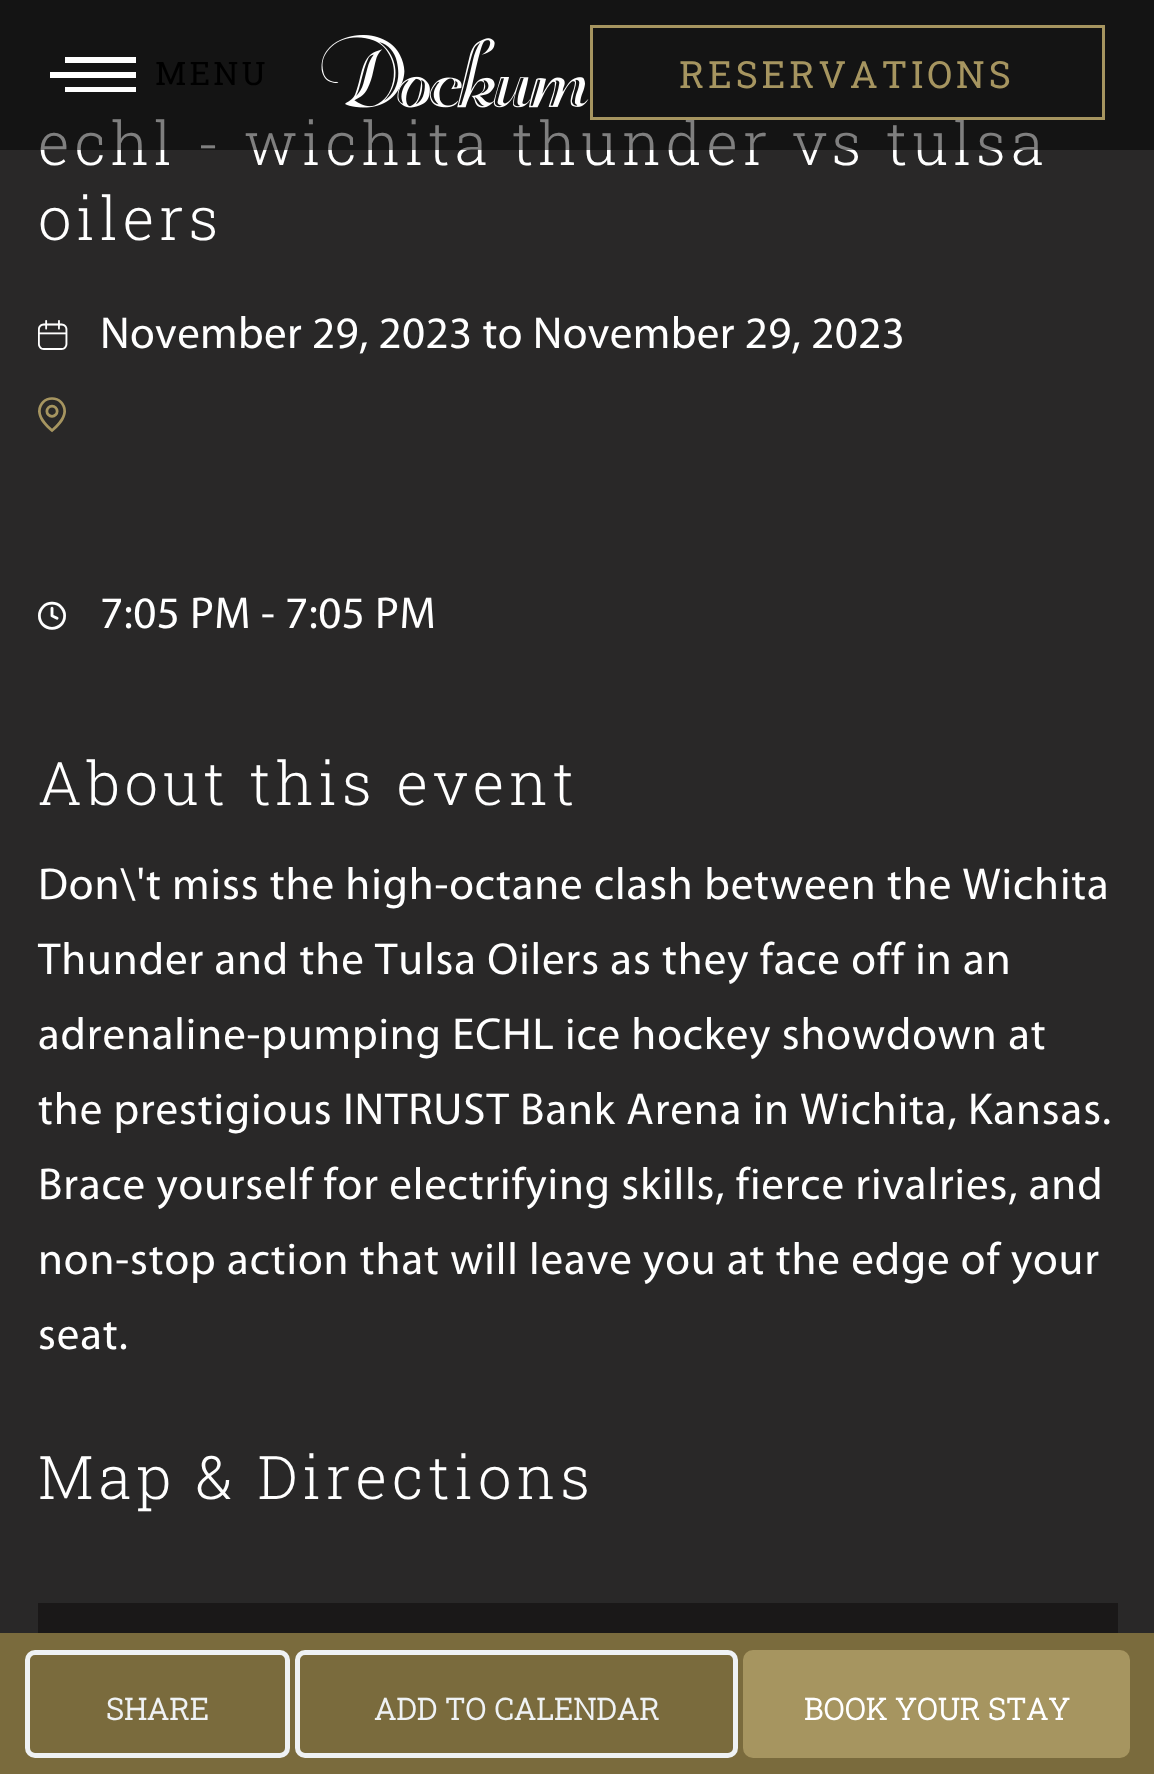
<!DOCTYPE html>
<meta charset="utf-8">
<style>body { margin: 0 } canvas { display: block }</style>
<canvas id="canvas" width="1154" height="1774"></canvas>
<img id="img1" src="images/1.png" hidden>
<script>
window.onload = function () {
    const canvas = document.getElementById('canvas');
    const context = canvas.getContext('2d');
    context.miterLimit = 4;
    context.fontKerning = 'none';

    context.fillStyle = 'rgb(41, 40, 40)';
    context.fillRect(0, 0, 1154, 1774);
    context.fillStyle = 'rgb(26, 24, 24)';
    context.fillRect(38, 1603, 1080, 30);
    context.fillStyle = 'rgb(122, 107, 61)';
    context.fillRect(0, 1633, 1154, 141);
    context.beginPath();
    context.roundRect(27.5, 1652.5, 260, 103, 7.5);
    context.strokeStyle = 'rgb(239, 242, 244)';
    context.lineWidth = 5;
    context.stroke();
    context.beginPath();
    context.roundRect(297.5, 1652.5, 438, 103, 7.5);
    context.stroke();
    context.fillStyle = 'rgb(166, 149, 96)';
    context.beginPath();
    context.roundRect(745.5, 1652.5, 382, 103, 7.5);
    context.fill();
    context.strokeStyle = 'rgb(166, 149, 96)';
    context.stroke();
    context.letterSpacing = '5px';
    context.font = '300 60px Roboto Slab';
    context.fillStyle = 'rgb(255, 255, 255)';
    context.fillText('echl - wichita thunder vs tulsa', 38, 165);
    context.fillStyle = 'rgba(0, 0, 0, 0.5)';
    context.fillRect(0, 0, 1154, 150);
    context.lineWidth = 3;
    context.strokeRect(591.5, 26.5, 512, 92);
    context.letterSpacing = '3.75px';
    context.font = '37.5px Roboto Slab';
    context.fillStyle = 'rgb(166, 149, 96)';
    context.fillText('RESERVATIONS', 679, 88);
    context.letterSpacing = '3px';
    context.font = '32.5px Roboto Slab';
    context.fillStyle = 'rgb(0, 0, 0)';
    context.fillText('MENU', 155, 85);
    context.fillStyle = 'rgb(255, 255, 255)';
    context.beginPath();
    context.moveTo(50, 72);
    context.lineTo(136, 72);
    context.lineTo(136, 78);
    context.lineTo(50, 78);
    context.closePath();
    context.moveTo(65, 57);
    context.lineTo(136, 57);
    context.lineTo(136, 63);
    context.lineTo(65, 63);
    context.closePath();
    context.moveTo(65, 87);
    context.lineTo(136, 87);
    context.lineTo(136, 92);
    context.lineTo(65, 92);
    context.closePath();
    context.fill();
    context.drawImage(document.getElementById('img1'), 321, 35, 268, 73);
    context.letterSpacing = '5px';
    context.font = '300 60px Roboto Slab';
    context.fillText('oilers', 38, 240);
    context.letterSpacing = '0.4px';
    context.font = '30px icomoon';
    context.fillText('󬤼', 38, 348);
    context.font = '45px Myriad';
    context.fillText('November 29, 2023 to November 29, 2023', 100, 348);
    context.font = '35px icomoon';
    context.fillStyle = 'rgb(166, 149, 96)';
    context.fillText('󬤐', 38, 430);
    context.font = '28px icomoon';
    context.fillStyle = 'rgb(255, 255, 255)';
    context.fillText('󬥀', 38, 628);
    context.font = '45px Myriad';
    context.fillText('7:05 PM - 7:05 PM', 100, 628);
    context.letterSpacing = '5px';
    context.font = '300 60px Roboto Slab';
    context.fillText('About this event', 38, 805);
    context.letterSpacing = '0.9px';
    context.font = '45px Myriad';
    context.fillText('Don\\\'t miss the high-octane clash between the Wichita', 38, 899);
    context.fillText('Thunder and the Tulsa Oilers as they face off in an', 38, 974);
    context.fillText('adrenaline-pumping ECHL ice hockey showdown at', 38, 1049);
    context.fillText('the prestigious INTRUST Bank Arena in Wichita, Kansas.', 38, 1124);
    context.fillText('Brace yourself for electrifying skills, fierce rivalries, and', 38, 1199);
    context.fillText('non-stop action that will leave you at the edge of your', 38, 1274);
    context.fillText('seat.', 38, 1349);
    context.letterSpacing = '5px';
    context.font = '300 60px Roboto Slab';
    context.fillText('Map & Directions', 38, 1499);
    context.letterSpacing = '0.4px';
    context.font = 'bold 30px Roboto Slab';
    context.fillStyle = 'rgb(239, 242, 244)';
    context.fillText('SHARE', 106, 1720);
    context.fillText('ADD TO CALENDAR', 374, 1720);
    context.fillStyle = 'rgb(255, 255, 255)';
    context.fillText('BOOK YOUR STAY', 804, 1720);
};
</script>
